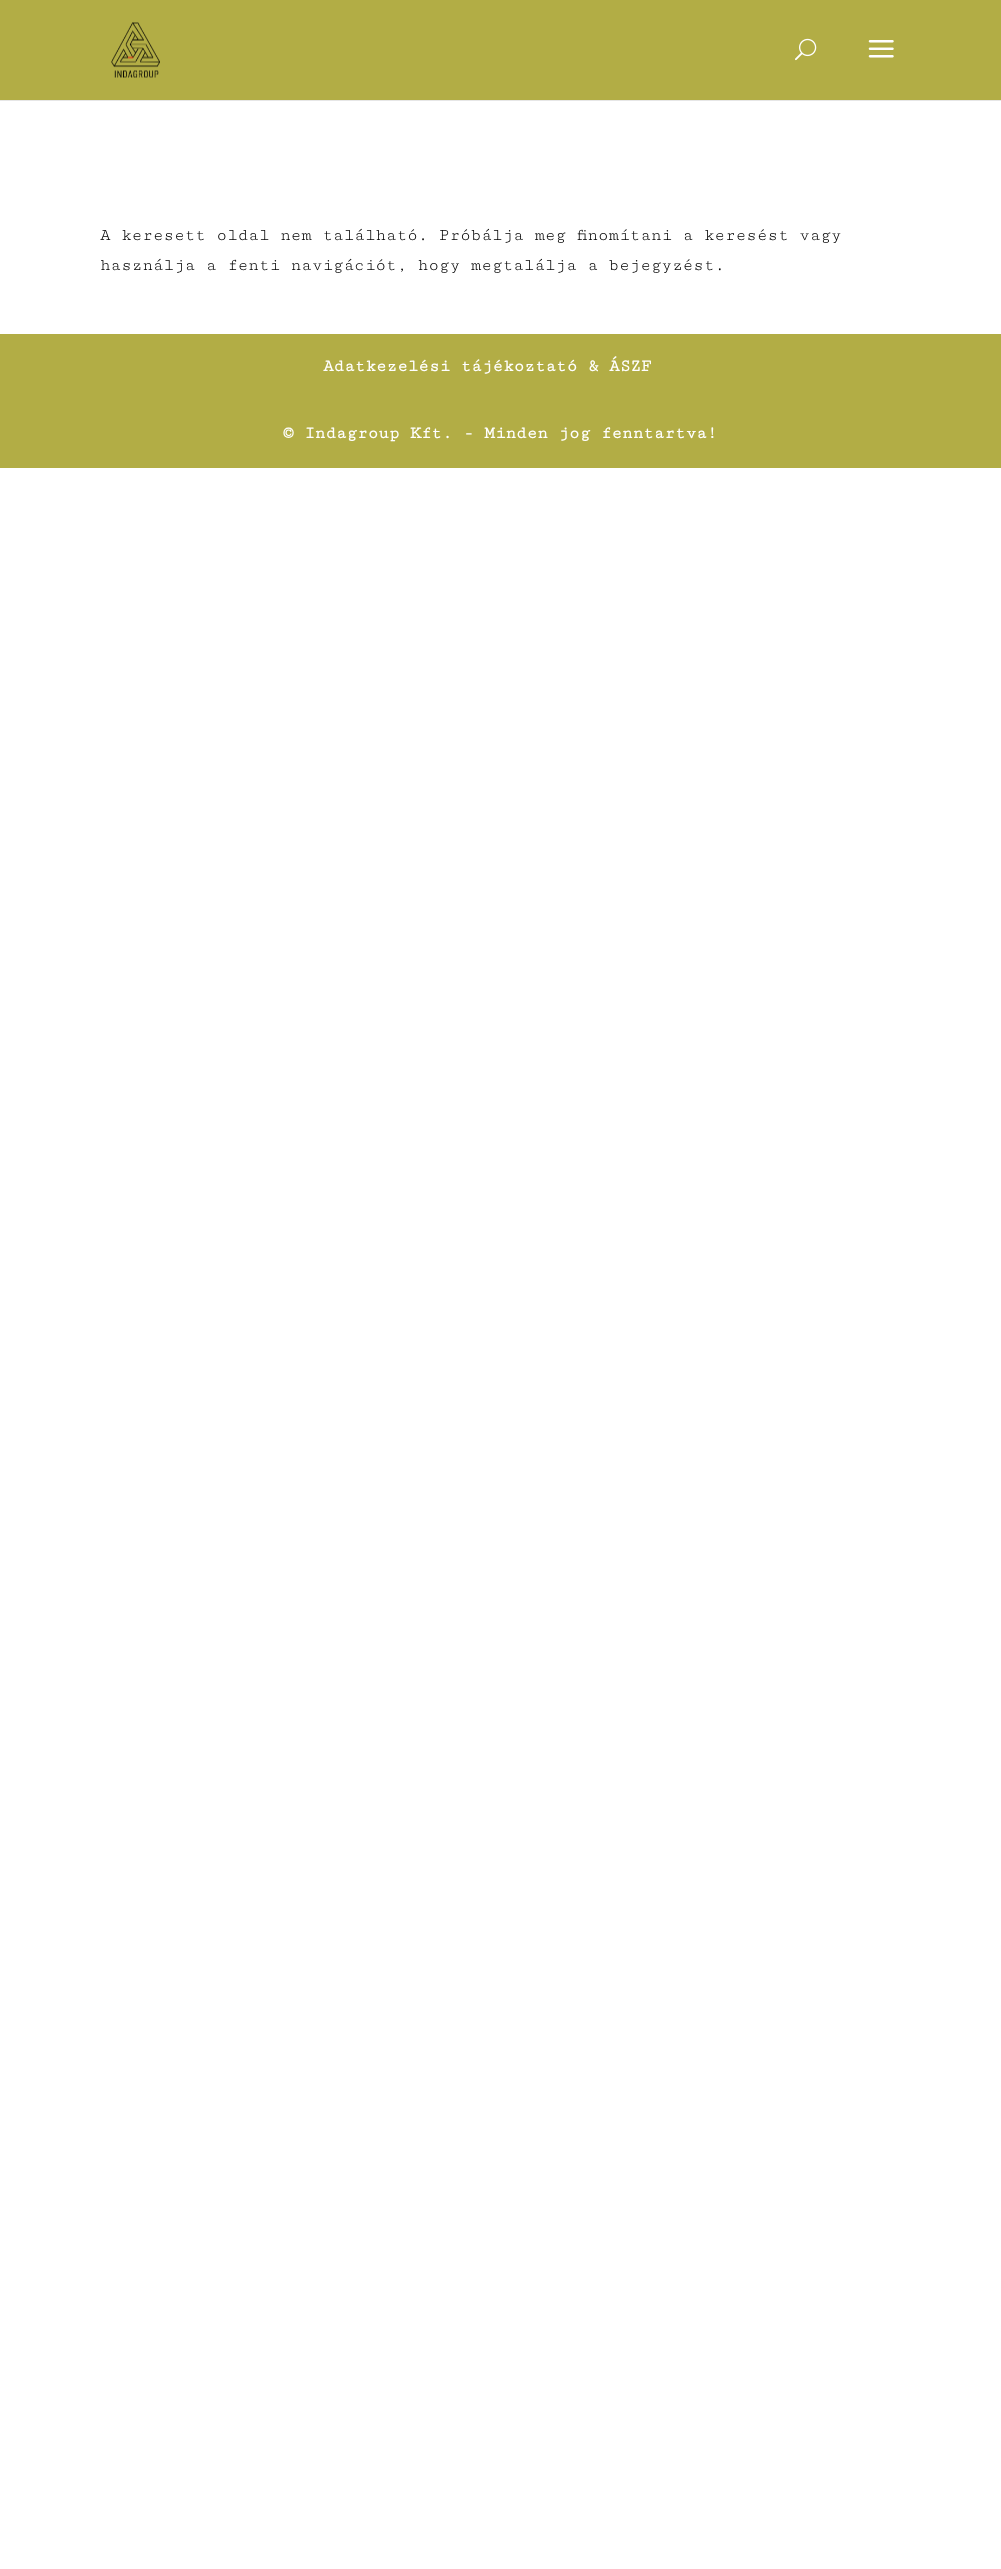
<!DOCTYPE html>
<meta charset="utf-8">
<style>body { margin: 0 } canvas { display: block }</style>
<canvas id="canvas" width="1001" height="2569"></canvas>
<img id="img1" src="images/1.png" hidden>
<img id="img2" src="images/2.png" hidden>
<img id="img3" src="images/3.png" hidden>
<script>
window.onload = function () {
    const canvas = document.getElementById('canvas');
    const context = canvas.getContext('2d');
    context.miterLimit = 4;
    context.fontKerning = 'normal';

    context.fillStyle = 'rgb(255, 255, 255)';
    context.fillRect(0, 0, 1001, 2569);
    context.fillStyle = 'rgb(230, 230, 230)';
    context.fillRect(0, 100, 1001, 1);
    context.fillStyle = 'rgb(178, 173, 69)';
    context.fillRect(0, 0, 1001, 100);
    context.drawImage(document.getElementById('img1'), 111, 22, 49, 56);
    context.drawImage(document.getElementById('img2'), 795, 38, 22, 23);
    context.drawImage(document.getElementById('img3'), 868, 40, 26, 18);
    context.fillRect(0, 334, 1001, 134);
    context.font = '17.5px Cutive Mono';
    context.fillStyle = 'rgb(0, 0, 0)';
    context.fillText('A keresett oldal nem található. Próbálja meg finomítani a keresést vagy', 100, 240);
    context.fillText('használja a fenti navigációt, hogy megtalálja a bejegyzést.', 100, 270);
    context.font = 'bold 17.5px Cutive Mono';
    context.fillStyle = 'rgb(255, 255, 255)';
    context.fillText('Adatkezelési tájékoztató & ÁSZF', 323, 371);
    context.fillText('© Indagroup Kft. - Minden jog fenntartva!', 283, 438);
};
</script>
